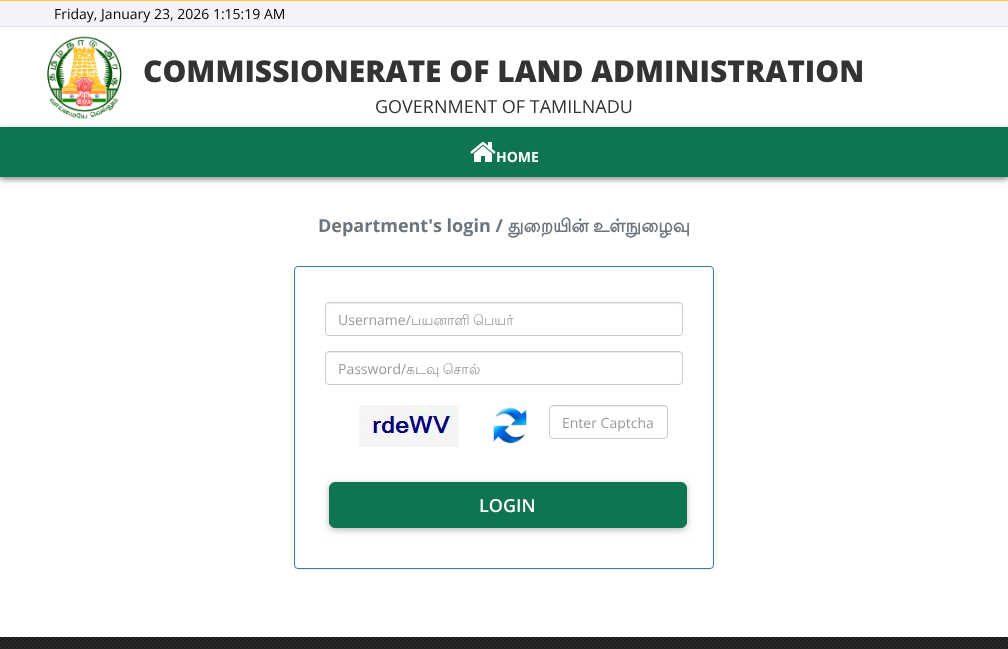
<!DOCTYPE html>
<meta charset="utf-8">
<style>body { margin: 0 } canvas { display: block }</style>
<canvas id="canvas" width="1008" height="649"></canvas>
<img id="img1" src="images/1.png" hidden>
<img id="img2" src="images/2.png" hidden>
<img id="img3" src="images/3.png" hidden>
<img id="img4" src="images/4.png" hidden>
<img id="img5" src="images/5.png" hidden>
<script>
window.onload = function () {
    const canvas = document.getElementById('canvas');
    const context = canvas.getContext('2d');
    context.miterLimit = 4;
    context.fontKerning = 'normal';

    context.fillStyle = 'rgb(255, 255, 255)';
    context.fillRect(0, 0, 1008, 649);
    context.save();
    context.beginPath();
    context.rect(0, 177, 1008, 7);
    context.clip();
    context.fillStyle = 'rgba(0, 0, 0, 0.12)';
    context.filter = 'blur(5px)';
    context.beginPath();
    context.rect(0, 2, 1008, 177);
    context.fill();
    context.filter = 'none';
    context.restore();
    context.save();
    context.beginPath();
    context.rect(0, 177, 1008, 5);
    context.clip();
    context.fillStyle = 'rgba(0, 0, 0, 0.16)';
    context.filter = 'blur(2.5px)';
    context.beginPath();
    context.rect(0, 2, 1008, 177);
    context.fill();
    context.filter = 'none';
    context.restore();
    context.fillStyle = 'rgb(252, 202, 69)';
    context.fillRect(0, 0, 1008, 1);
    context.fillStyle = 'rgb(243, 244, 250)';
    context.fillRect(0, 1, 1008, 25);
    context.fillStyle = 'rgb(221, 224, 228)';
    context.fillRect(0, 26, 1008, 1);
    context.drawImage(document.getElementById('img1'), 47, 36, 75, 83);
    context.fillStyle = 'rgba(0, 0, 0, 0.12)';
    context.filter = 'blur(5px)';
    context.beginPath();
    context.rect(0, 129, 1008, 50);
    context.fill();
    context.filter = 'none';
    context.fillStyle = 'rgba(0, 0, 0, 0.16)';
    context.filter = 'blur(2.5px)';
    context.beginPath();
    context.rect(0, 129, 1008, 50);
    context.fill();
    context.filter = 'none';
    context.fillStyle = 'rgb(15, 116, 81)';
    context.fillRect(0, 127, 1008, 50);
    context.drawImage(document.getElementById('img2'), 470, 142, 26, 20);
    context.fillStyle = 'rgba(0, 0, 0, 0.05)';
    context.filter = 'blur(0.5px)';
    context.beginPath();
    context.roundRect(294, 267, 420, 303, 4);
    context.fill();
    context.filter = 'none';
    context.fillStyle = 'rgb(255, 255, 255)';
    context.beginPath();
    context.roundRect(294.5, 266.5, 419, 302, 3.5);
    context.fill();
    context.strokeStyle = 'rgb(51, 122, 183)';
    context.stroke();
    context.fillStyle = 'rgb(236, 236, 236)';
    context.beginPath();
    context.moveTo(329, 304);
    context.lineTo(679, 304);
    context.bezierCurveTo(681, 304, 682, 305, 682, 307);
    context.bezierCurveTo(682, 305, 681, 303, 679, 303);
    context.lineTo(329, 303);
    context.lineTo(327, 304);
    context.lineTo(326, 307);
    context.bezierCurveTo(326, 305, 327, 304, 329, 304);
    context.closePath();
    context.fill();
    context.beginPath();
    context.roundRect(325.5, 302.5, 357, 33, 3.5);
    context.strokeStyle = 'rgb(204, 204, 204)';
    context.stroke();
    context.beginPath();
    context.moveTo(329, 353);
    context.lineTo(679, 353);
    context.bezierCurveTo(681, 353, 682, 354, 682, 356);
    context.bezierCurveTo(682, 354, 681, 352, 679, 352);
    context.lineTo(329, 352);
    context.lineTo(327, 353);
    context.lineTo(326, 356);
    context.bezierCurveTo(326, 354, 327, 353, 329, 353);
    context.closePath();
    context.fill();
    context.beginPath();
    context.roundRect(325.5, 351.5, 357, 33, 3.5);
    context.stroke();
    context.drawImage(document.getElementById('img3'), 359, 405, 100, 42);
    context.drawImage(document.getElementById('img4'), 493, 407, 34, 37);
    context.beginPath();
    context.moveTo(553, 407);
    context.lineTo(664, 407);
    context.bezierCurveTo(666, 407, 667, 408, 667, 410);
    context.bezierCurveTo(667, 408, 666, 406, 664, 406);
    context.lineTo(572, 406);
    context.bezierCurveTo(570, 406, 550, 401, 550, 410);
    context.bezierCurveTo(550, 408, 551, 407, 553, 407);
    context.closePath();
    context.fill();
    context.beginPath();
    context.roundRect(549.5, 405.5, 118, 33, 3.5);
    context.stroke();
    context.fillStyle = 'rgba(0, 0, 0, 0.12)';
    context.filter = 'blur(5px)';
    context.beginPath();
    context.roundRect(329, 484, 358, 46, 6);
    context.fill();
    context.filter = 'none';
    context.fillStyle = 'rgba(0, 0, 0, 0.16)';
    context.filter = 'blur(2.5px)';
    context.beginPath();
    context.roundRect(329, 484, 358, 46, 6);
    context.fill();
    context.filter = 'none';
    context.fillStyle = 'rgb(15, 116, 81)';
    context.beginPath();
    context.roundRect(329.5, 482.5, 357, 45, 5.5);
    context.fill();
    context.strokeStyle = 'rgb(15, 116, 81)';
    context.stroke();
    context.drawImage(document.getElementById('img5'), 0, 637, 1008, 12);
    context.font = '14px Open Sans';
    context.fillStyle = 'rgb(0, 0, 0)';
    context.fillText('Friday, January 23, 2026 1:15:19 AM', 54, 19);
    context.font = '800 30px Open Sans';
    context.fillStyle = 'rgb(51, 51, 51)';
    context.fillText('COMMISSIONERATE OF LAND ADMINISTRATION', 143, 82);
    context.font = '18px Open Sans';
    context.fillText('GOVERNMENT OF TAMILNADU', 375, 113);
    context.font = 'bold 14px Open Sans';
    context.fillStyle = 'rgb(255, 255, 255)';
    context.fillText('HOME', 496, 162);
    context.font = 'bold 18px Open Sans';
    context.fillStyle = 'rgb(108, 117, 125)';
    context.fillText('Department\'s login /', 318, 232);
    context.font = 'bold 18px Lohit Tamil';
    context.fillText('துறையின்', 508, 232);
    context.fillText('உள்நுழைவு', 593, 232);
    context.font = '14px Open Sans';
    context.fillStyle = 'rgb(153, 153, 153)';
    context.fillText('Username/', 338, 325);
    context.wordSpacing = '-1px';
    context.font = '14px Lohit Tamil';
    context.fillText('பயனாளி பெயர்', 411, 325);
    context.wordSpacing = '0px';
    context.font = '14px Open Sans';
    context.fillText('Password/', 338, 374);
    context.wordSpacing = '-1px';
    context.font = '14px Lohit Tamil';
    context.fillText('கடவு சொல்', 406, 374);
    context.wordSpacing = '0px';
    context.font = '14px Open Sans';
    context.fillText('Enter Captcha', 562, 428);
    context.font = '600 18px Open Sans';
    context.fillStyle = 'rgb(255, 255, 255)';
    context.fillText('LOGIN', 479, 512);
};
</script>
